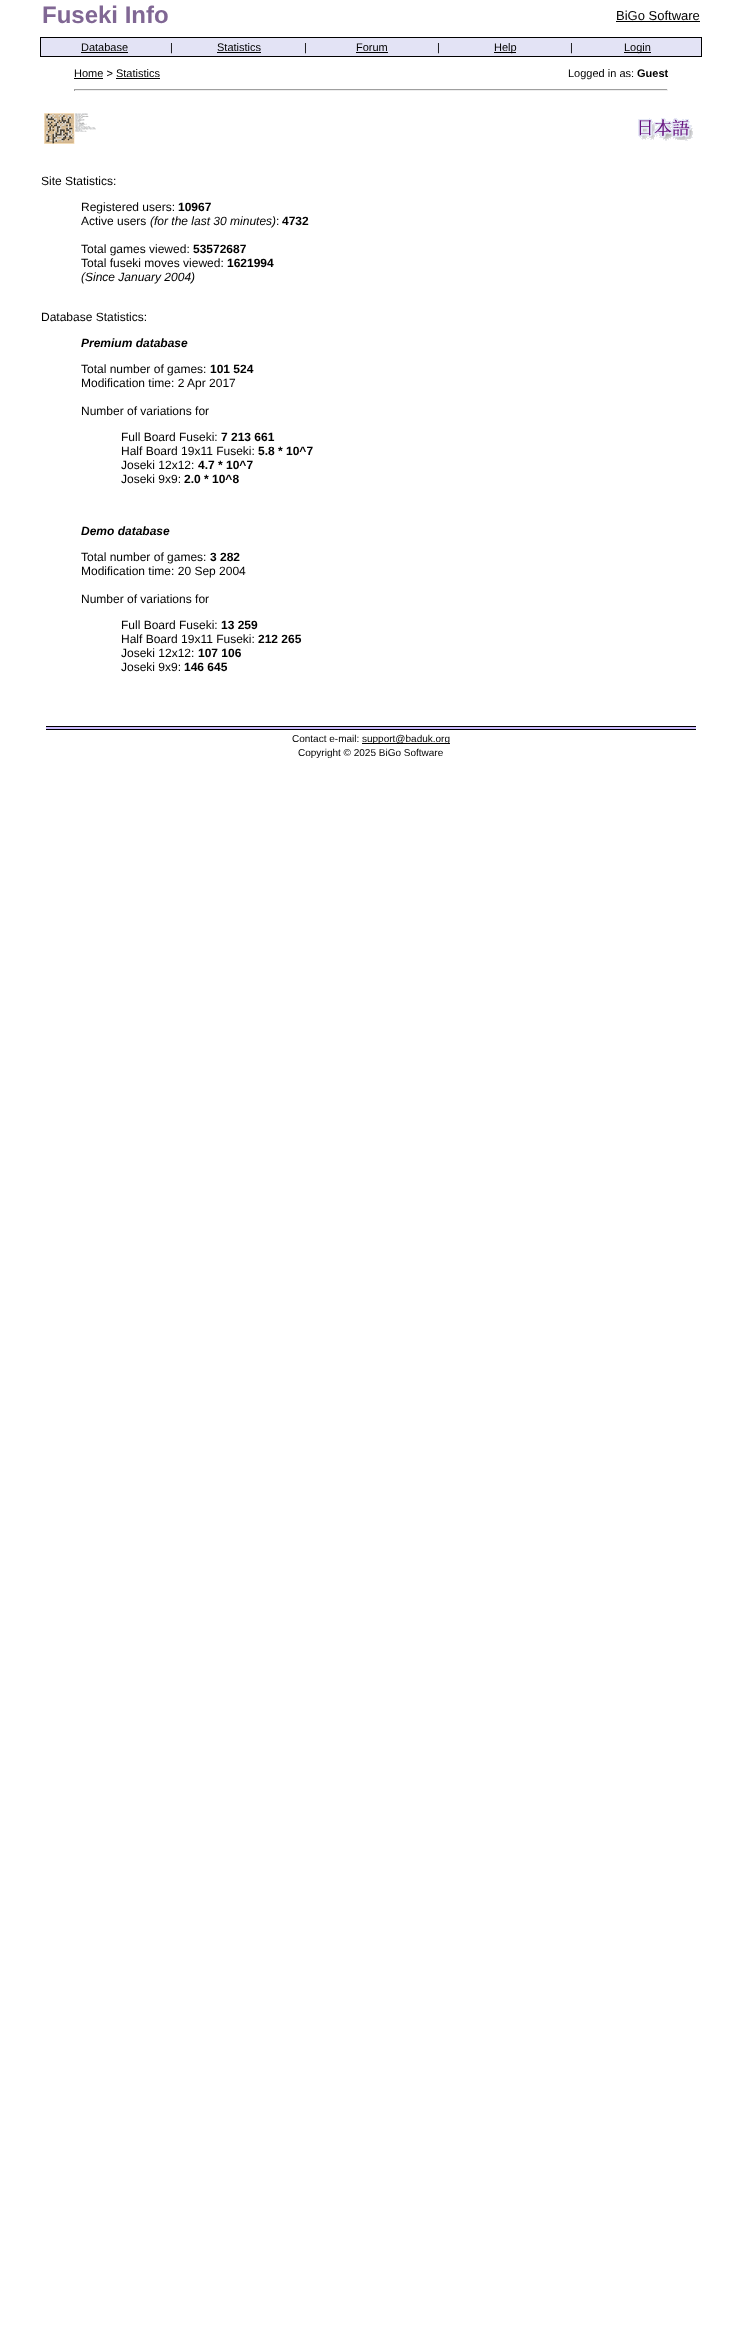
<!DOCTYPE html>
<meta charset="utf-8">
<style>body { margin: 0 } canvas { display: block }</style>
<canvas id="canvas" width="742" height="2343"></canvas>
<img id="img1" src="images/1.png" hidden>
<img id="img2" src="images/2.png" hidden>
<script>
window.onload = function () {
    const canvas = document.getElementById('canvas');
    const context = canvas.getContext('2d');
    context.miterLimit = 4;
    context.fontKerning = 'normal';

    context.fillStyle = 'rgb(255, 255, 255)';
    context.fillRect(0, 0, 742, 2343);
    context.fillStyle = 'rgb(0, 0, 0)';
    context.fillRect(616, 21, 84, 1);
    context.fillRect(40, 37, 662, 20);
    context.fillStyle = 'rgb(227, 227, 245)';
    context.fillRect(41, 38, 660, 18);
    context.fillStyle = 'rgb(0, 0, 0)';
    context.fillRect(81, 52, 47, 1);
    context.fillRect(217, 52, 44, 1);
    context.fillRect(356, 52, 32, 1);
    context.fillRect(494, 52, 22, 1);
    context.fillRect(624, 52, 27, 1);
    context.fillRect(74, 78, 29, 1);
    context.fillRect(116, 78, 44, 1);
    context.fillStyle = 'rgb(159, 159, 159)';
    context.fillRect(74, 89, 594, 1);
    context.fillStyle = 'rgb(238, 238, 238)';
    context.fillRect(667, 89, 1, 2);
    context.fillRect(74, 90, 594, 1);
    context.fillStyle = 'rgb(159, 159, 159)';
    context.fillRect(74, 89, 1, 2);
    context.drawImage(document.getElementById('img1'), 44, 113, 52, 31);
    context.drawImage(document.getElementById('img2'), 638, 118, 55, 23);
    context.fillStyle = 'rgb(0, 0, 0)';
    context.fillRect(46, 726, 650, 1);
    context.fillStyle = 'rgb(204, 187, 255)';
    context.fillRect(46, 727, 650, 2);
    context.fillStyle = 'rgb(0, 0, 0)';
    context.fillRect(46, 729, 650, 1);
    context.fillRect(362, 743, 88, 1);
    context.font = 'bold 24px Liberation Sans';
    context.fillStyle = 'rgb(128, 103, 148)';
    context.fillText('Fuseki Info', 42, 23);
    context.font = '13px Liberation Sans';
    context.fillStyle = 'rgb(0, 0, 0)';
    context.fillText('BiGo Software', 616, 20);
    context.font = '11px Liberation Sans';
    context.fillText('Database', 81, 51);
    context.fillText('|', 170, 51);
    context.fillText('Statistics', 217, 51);
    context.fillText('|', 304, 51);
    context.fillText('Forum', 356, 51);
    context.fillText('|', 437, 51);
    context.fillText('Help', 494, 51);
    context.fillText('|', 570, 51);
    context.fillText('Login', 624, 51);
    context.fillText('Home > Statistics', 74, 77);
    context.fillText('Logged in as:', 568, 77);
    context.font = 'bold 11px Liberation Sans';
    context.fillText('Guest', 637, 77);
    context.font = '12px Liberation Sans';
    context.fillText('Site Statistics:', 41, 185);
    context.fillText('Registered users:', 81, 211);
    context.font = 'bold 12px Liberation Sans';
    context.fillText('10967', 178, 211);
    context.font = '12px Liberation Sans';
    context.fillText('Active users', 81, 225);
    context.font = 'italic 12px Liberation Sans';
    context.fillText('(for the last 30 minutes)', 150, 225);
    context.font = '12px Liberation Sans';
    context.fillText(':', 276, 225);
    context.font = 'bold 12px Liberation Sans';
    context.fillText('4732', 282, 225);
    context.font = '12px Liberation Sans';
    context.fillText('Total games viewed:', 81, 253);
    context.font = 'bold 12px Liberation Sans';
    context.fillText('53572687', 193, 253);
    context.font = '12px Liberation Sans';
    context.fillText('Total fuseki moves viewed:', 81, 267);
    context.font = 'bold 12px Liberation Sans';
    context.fillText('1621994', 227, 267);
    context.font = 'italic 12px Liberation Sans';
    context.fillText('(Since January 2004)', 81, 281);
    context.font = '12px Liberation Sans';
    context.fillText('Database Statistics:', 41, 321);
    context.font = 'italic bold 12px Liberation Sans';
    context.fillText('Premium database', 81, 347);
    context.font = '12px Liberation Sans';
    context.fillText('Total number of games:', 81, 373);
    context.font = 'bold 12px Liberation Sans';
    context.fillText('101 524', 210, 373);
    context.font = '12px Liberation Sans';
    context.fillText('Modification time: 2 Apr 2017', 81, 387);
    context.fillText('Number of variations for', 81, 415);
    context.fillText('Full Board Fuseki:', 121, 441);
    context.font = 'bold 12px Liberation Sans';
    context.fillText('7 213 661', 221, 441);
    context.font = '12px Liberation Sans';
    context.fillText('Half Board 19x11 Fuseki:', 121, 455);
    context.font = 'bold 12px Liberation Sans';
    context.fillText('5.8 * 10^7', 258, 455);
    context.font = '12px Liberation Sans';
    context.fillText('Joseki 12x12:', 121, 469);
    context.font = 'bold 12px Liberation Sans';
    context.fillText('4.7 * 10^7', 198, 469);
    context.font = '12px Liberation Sans';
    context.fillText('Joseki 9x9:', 121, 483);
    context.font = 'bold 12px Liberation Sans';
    context.fillText('2.0 * 10^8', 184, 483);
    context.font = 'italic bold 12px Liberation Sans';
    context.fillText('Demo database', 81, 535);
    context.font = '12px Liberation Sans';
    context.fillText('Total number of games:', 81, 561);
    context.font = 'bold 12px Liberation Sans';
    context.fillText('3 282', 210, 561);
    context.font = '12px Liberation Sans';
    context.fillText('Modification time: 20 Sep 2004', 81, 575);
    context.fillText('Number of variations for', 81, 603);
    context.fillText('Full Board Fuseki:', 121, 629);
    context.font = 'bold 12px Liberation Sans';
    context.fillText('13 259', 221, 629);
    context.font = '12px Liberation Sans';
    context.fillText('Half Board 19x11 Fuseki:', 121, 643);
    context.font = 'bold 12px Liberation Sans';
    context.fillText('212 265', 258, 643);
    context.font = '12px Liberation Sans';
    context.fillText('Joseki 12x12:', 121, 657);
    context.font = 'bold 12px Liberation Sans';
    context.fillText('107 106', 198, 657);
    context.font = '12px Liberation Sans';
    context.fillText('Joseki 9x9:', 121, 671);
    context.font = 'bold 12px Liberation Sans';
    context.fillText('146 645', 184, 671);
    context.font = '10px Liberation Sans';
    context.fillText('Contact e-mail:', 292, 742);
    context.fillText('support@baduk.org', 362, 742);
    context.fillText('Copyright © 2025 BiGo Software', 298, 756);
};
</script>
